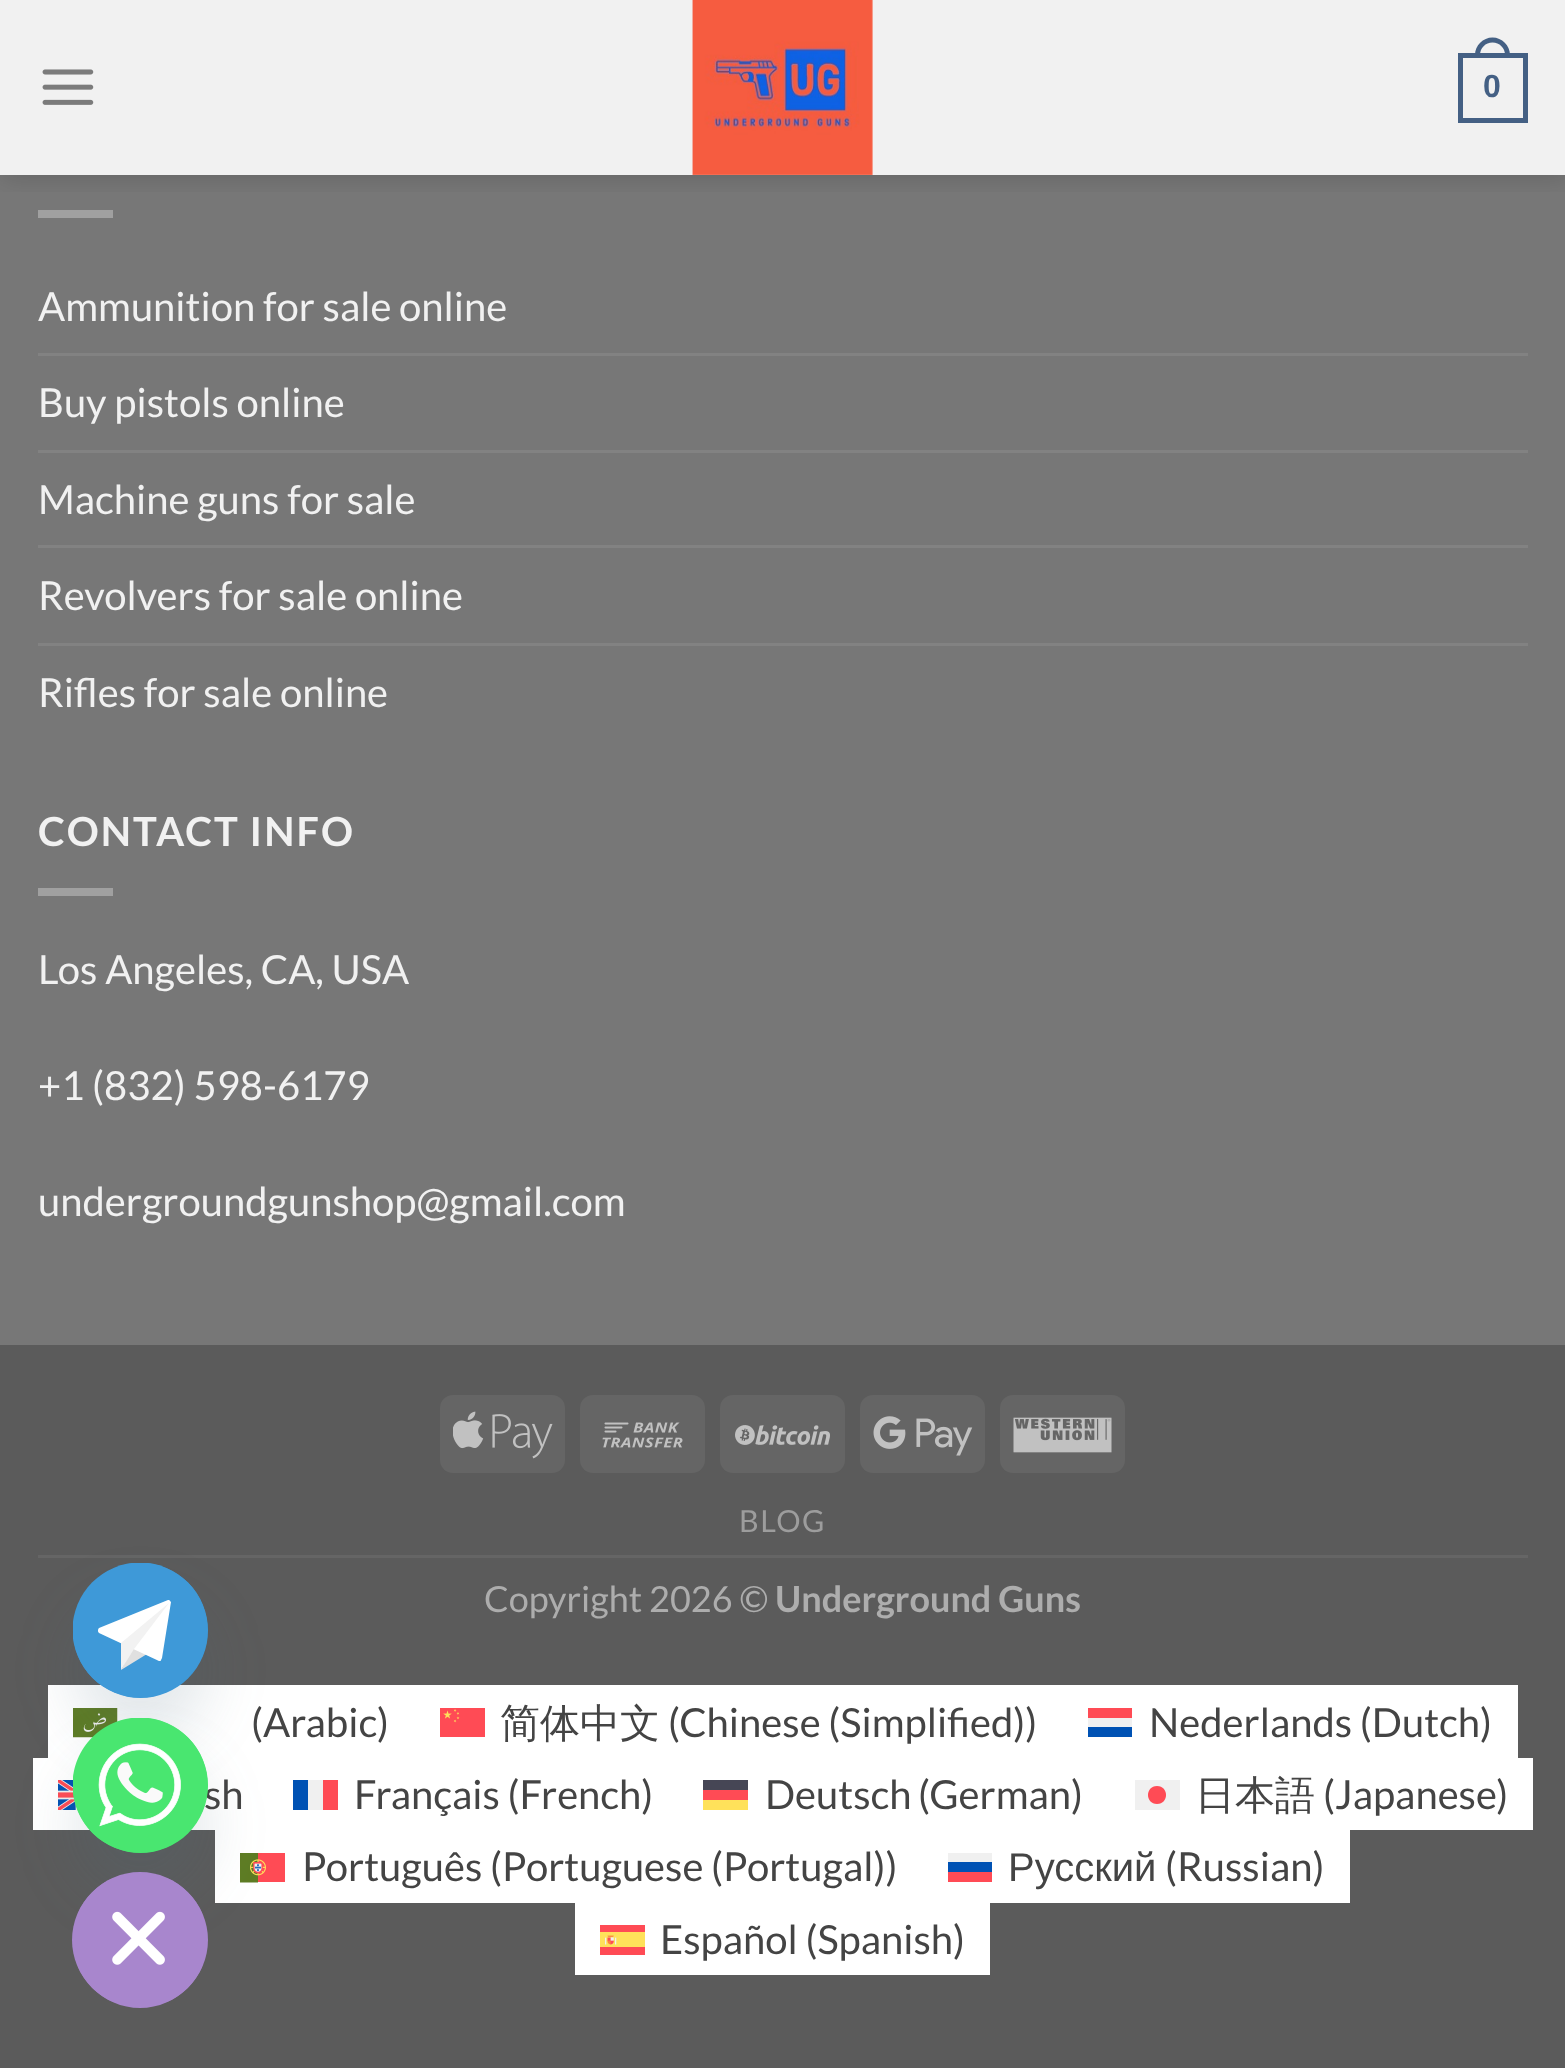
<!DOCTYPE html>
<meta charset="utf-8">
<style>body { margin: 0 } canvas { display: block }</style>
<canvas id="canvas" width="1565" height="2068"></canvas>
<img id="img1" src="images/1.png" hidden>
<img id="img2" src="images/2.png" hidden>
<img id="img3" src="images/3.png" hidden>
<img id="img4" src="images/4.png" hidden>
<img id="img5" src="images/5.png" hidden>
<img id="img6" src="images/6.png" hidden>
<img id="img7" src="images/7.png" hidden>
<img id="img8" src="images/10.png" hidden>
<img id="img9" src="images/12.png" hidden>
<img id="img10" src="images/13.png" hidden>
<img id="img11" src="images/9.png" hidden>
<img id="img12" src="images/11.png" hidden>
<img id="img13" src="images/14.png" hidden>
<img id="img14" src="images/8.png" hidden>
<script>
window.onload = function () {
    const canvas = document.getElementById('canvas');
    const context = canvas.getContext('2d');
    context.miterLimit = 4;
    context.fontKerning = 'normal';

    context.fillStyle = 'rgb(91, 91, 91)';
    context.fillRect(0, 0, 1565, 2068);
    context.fillStyle = 'rgb(119, 119, 119)';
    context.fillRect(0, 175, 1565, 1170);
    context.fillStyle = 'rgb(241, 241, 241)';
    context.fillRect(0, 0, 1565, 175);
    context.fillStyle = 'rgb(160, 160, 160)';
    context.fillRect(38, 210, 75, 8);
    context.save();
    context.beginPath();
    context.rect(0, 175, 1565, 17);
    context.clip();
    context.fillStyle = 'rgba(0, 0, 0, 0.15)';
    context.filter = 'blur(12.5px)';
    context.beginPath();
    context.rect(3, 3, 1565, 175);
    context.fill();
    context.filter = 'none';
    context.restore();
    context.drawImage(document.getElementById('img1'), 42, 69, 52, 36);
    context.drawImage(document.getElementById('img2'), 692, 0, 181, 175);
    context.strokeStyle = 'rgb(68, 96, 132)';
    context.lineWidth = 5;
    context.strokeRect(1460.5, 55.5, 65, 65);
    context.fillStyle = 'rgb(68, 96, 132)';
    context.beginPath();
    context.moveTo(1492.5, 37.5);
    context.bezierCurveTo(1502, 37.5, 1510, 45.5, 1510, 55);
    context.lineTo(1510, 57.5);
    context.lineTo(1475, 57.5);
    context.lineTo(1475, 55);
    context.bezierCurveTo(1475, 45.5, 1483, 37.5, 1492.5, 37.5);
    context.closePath();
    context.moveTo(1492.5, 42.5);
    context.bezierCurveTo(1499.5, 42.5, 1505, 48, 1505, 55);
    context.lineTo(1505, 57.5);
    context.lineTo(1480, 57.5);
    context.lineTo(1480, 55);
    context.bezierCurveTo(1480, 48, 1485.5, 42.5, 1492.5, 42.5);
    context.closePath();
    context.fill('evenodd');
    context.fillStyle = 'rgb(130, 130, 130)';
    context.fillRect(38, 353, 1490, 3);
    context.fillRect(38, 450, 1490, 3);
    context.fillRect(38, 545, 1490, 3);
    context.fillRect(38, 643, 1490, 3);
    context.fillStyle = 'rgb(160, 160, 160)';
    context.fillRect(38, 888, 75, 8);
    context.fillStyle = 'rgb(101, 101, 101)';
    context.beginPath();
    context.roundRect(440, 1395, 125, 78, 13);
    context.fill();
    context.drawImage(document.getElementById('img3'), 453, 1411, 100, 48);
    context.beginPath();
    context.roundRect(580, 1395, 125, 78, 13);
    context.fill();
    context.drawImage(document.getElementById('img4'), 602, 1422, 81, 26);
    context.beginPath();
    context.roundRect(720, 1395, 125, 78, 13);
    context.fill();
    context.drawImage(document.getElementById('img5'), 735, 1425, 95, 20);
    context.beginPath();
    context.roundRect(860, 1395, 125, 78, 13);
    context.fill();
    context.drawImage(document.getElementById('img6'), 873, 1416, 100, 40);
    context.beginPath();
    context.roundRect(1000, 1395, 125, 78, 13);
    context.fill();
    context.drawImage(document.getElementById('img7'), 1013, 1417, 99, 36);
    context.fillRect(38, 1555, 1490, 3);
    context.fillStyle = 'rgb(255, 255, 255)';
    context.fillRect(48, 1685, 1470, 73);
    context.drawImage(document.getElementById('img8'), 73, 1708, 45, 30);
    context.fillRect(33, 1758, 1500, 72);
    context.drawImage(document.getElementById('img9'), 58, 1780, 20, 30);
    context.fillStyle = 'rgb(0, 82, 180)';
    context.fillRect(293, 1780, 15, 30);
    context.fillStyle = 'rgba(73, 104, 126, 0.16)';
    context.filter = 'blur(30px)';
    context.beginPath();
    context.roundRect(73, 1603, 135, 135, 67.5);
    context.fill();
    context.filter = 'none';
    context.fillStyle = 'rgb(62, 153, 216)';
    context.beginPath();
    context.arc(140.5, 1630.5, 67.5, 0, 2 * Math.PI);
    context.fill();
    context.save();
    context.beginPath();
    context.rect(73, 1563, 135, 135);
    context.clip();
    context.beginPath();
    context.arc(140, 1630, 67.5, 0, 2 * Math.PI);
    context.fill();
    context.restore();
    context.fillStyle = 'rgb(224, 224, 224)';
    context.beginPath();
    context.moveTo(133, 1647.5);
    context.lineTo(121, 1670);
    context.lineTo(147, 1654);
    context.closePath();
    context.fill();
    context.fillStyle = 'rgb(255, 255, 255)';
    context.beginPath();
    context.moveTo(170, 1601);
    context.bezierCurveTo(170, 1600, 169, 1600, 168, 1600);
    context.lineTo(99, 1628);
    context.bezierCurveTo(98, 1629, 98, 1630, 98, 1631);
    context.bezierCurveTo(98, 1631, 98, 1632, 99, 1633);
    context.lineTo(159, 1661);
    context.lineTo(160, 1661);
    context.bezierCurveTo(160, 1661, 161, 1661, 161, 1660);
    context.lineTo(162, 1658);
    context.lineTo(171, 1602);
    context.closePath();
    context.fill();
    context.fillStyle = 'rgb(242, 242, 242)';
    context.beginPath();
    context.moveTo(169, 1603);
    context.lineTo(121, 1643);
    context.lineTo(121, 1670);
    context.lineTo(134, 1649);
    context.closePath();
    context.fill();
    context.fillStyle = 'rgb(255, 255, 255)';
    context.fillRect(215, 1830, 1135, 73);
    context.drawImage(document.getElementById('img10'), 240, 1853, 45, 30);
    context.fillStyle = 'rgba(73, 104, 126, 0.16)';
    context.filter = 'blur(30px)';
    context.beginPath();
    context.roundRect(73, 1758, 135, 135, 67.5);
    context.fill();
    context.filter = 'none';
    context.fillStyle = 'rgb(168, 134, 205)';
    context.beginPath();
    context.moveTo(140, 2008);
    context.bezierCurveTo(103, 2008, 72, 1977, 72, 1940);
    context.bezierCurveTo(72, 1903, 103, 1872, 140, 1872);
    context.bezierCurveTo(177, 1872, 208, 1903, 208, 1940);
    context.bezierCurveTo(208, 1977, 177, 2008, 140, 2008);
    context.closePath();
    context.fill();
    context.drawImage(document.getElementById('img11'), 78, 1878, 124, 124);
    context.drawImage(document.getElementById('img12'), 440, 1708, 45, 29);
    context.fillStyle = 'rgb(255, 75, 85)';
    context.fillRect(1088, 1708, 44, 10);
    context.fillStyle = 'rgb(240, 240, 240)';
    context.fillRect(1088, 1718, 44, 9);
    context.fillStyle = 'rgb(0, 82, 180)';
    context.fillRect(1088, 1727, 44, 10);
    context.fillStyle = 'rgb(240, 240, 240)';
    context.fillRect(308, 1780, 15, 30);
    context.fillStyle = 'rgb(255, 75, 85)';
    context.fillRect(323, 1780, 15, 30);
    context.fillStyle = 'rgb(70, 70, 85)';
    context.fillRect(703, 1780, 45, 10);
    context.fillStyle = 'rgb(255, 75, 85)';
    context.fillRect(703, 1790, 45, 10);
    context.fillStyle = 'rgb(255, 225, 90)';
    context.fillRect(703, 1800, 45, 10);
    context.fillStyle = 'rgb(240, 240, 240)';
    context.fillRect(1135, 1780, 45, 30);
    context.fillStyle = 'rgb(255, 75, 85)';
    context.beginPath();
    context.moveTo(1157, 1804);
    context.bezierCurveTo(1169, 1804, 1169, 1786, 1157, 1786);
    context.bezierCurveTo(1145, 1786, 1145, 1804, 1157, 1804);
    context.closePath();
    context.fill();
    context.fillStyle = 'rgb(240, 240, 240)';
    context.fillRect(948, 1853, 44, 9);
    context.fillStyle = 'rgb(0, 82, 180)';
    context.fillRect(948, 1862, 44, 10);
    context.fillStyle = 'rgb(255, 75, 85)';
    context.fillRect(948, 1872, 44, 10);
    context.fillStyle = 'rgb(255, 255, 255)';
    context.fillRect(575, 1903, 415, 72);
    context.drawImage(document.getElementById('img13'), 600, 1925, 45, 30);
    context.font = 'bold 32px Liberation Sans';
    context.fillStyle = 'rgb(68, 96, 132)';
    context.fillText('0', 1483, 97);
    context.font = '40px Lato';
    context.fillStyle = 'rgb(241, 241, 241)';
    context.fillText('Ammunition for sale online', 38, 321);
    context.fillText('Buy pistols online', 38, 417);
    context.fillText('Machine guns for sale', 38, 514);
    context.fillText('Revolvers for sale online', 38, 610);
    context.fillText('Rifles for sale online', 38, 707);
    context.letterSpacing = '2px';
    context.font = 'bold 40px Lato';
    context.fillText('CONTACT INFO', 38, 846);
    context.letterSpacing = '0px';
    context.font = '40px Lato';
    context.fillText('Los Angeles, CA, USA', 38, 984);
    context.fillText('+1 (832) 598-6179', 38, 1100);
    context.fillText('undergroundgunshop@gmail.com', 38, 1216);
    context.letterSpacing = '1.5px';
    context.font = '30.5px Lato';
    context.fillStyle = 'rgb(157, 157, 157)';
    context.fillText('BLOG', 739, 1532);
    context.letterSpacing = '0px';
    context.font = '36px Lato';
    context.fillStyle = 'rgb(173, 173, 173)';
    context.fillText('Copyright 2026 ©', 484, 1612);
    context.font = 'bold 36px Lato';
    context.fillText('Underground Guns', 775, 1612);
    context.font = '40px Lato';
    context.fillStyle = 'rgb(68, 68, 68)';
    context.fillText('(Arabic)', 251, 1737);
    context.font = '500 40px WenQuanYi Zen Hei';
    context.fillText('简体中文', 500, 1737);
    context.font = '40px Lato';
    context.fillText('(Chinese (Simplified))', 668, 1737);
    context.fillText('Nederlands (Dutch)', 1149, 1737);
    context.fillText('sh', 204, 1809);
    context.fillStyle = 'rgb(73, 230, 112)';
    context.beginPath();
    context.arc(140.5, 1785.5, 67.5, 0, 2 * Math.PI);
    context.fill();
    context.drawImage(document.getElementById('img14'), 73, 1718, 135, 135);
    context.fillStyle = 'rgb(68, 68, 68)';
    context.fillText('Français (French)', 354, 1809);
    context.fillText('Deutsch', 765, 1809);
    context.fillText('(German)', 918, 1809);
    context.font = '500 40px WenQuanYi Zen Hei';
    context.fillText('日本語', 1195, 1809);
    context.font = '40px Lato';
    context.fillText('(Japanese)', 1323, 1809);
    context.fillText('Português (Portuguese (Portugal))', 302, 1881);
    context.font = '40px Liberation Sans';
    context.fillText('Русский', 1008, 1881);
    context.font = '40px Lato';
    context.fillText('(Russian)', 1165, 1881);
    context.fillText('Español (Spanish)', 660, 1954);
};
</script>
